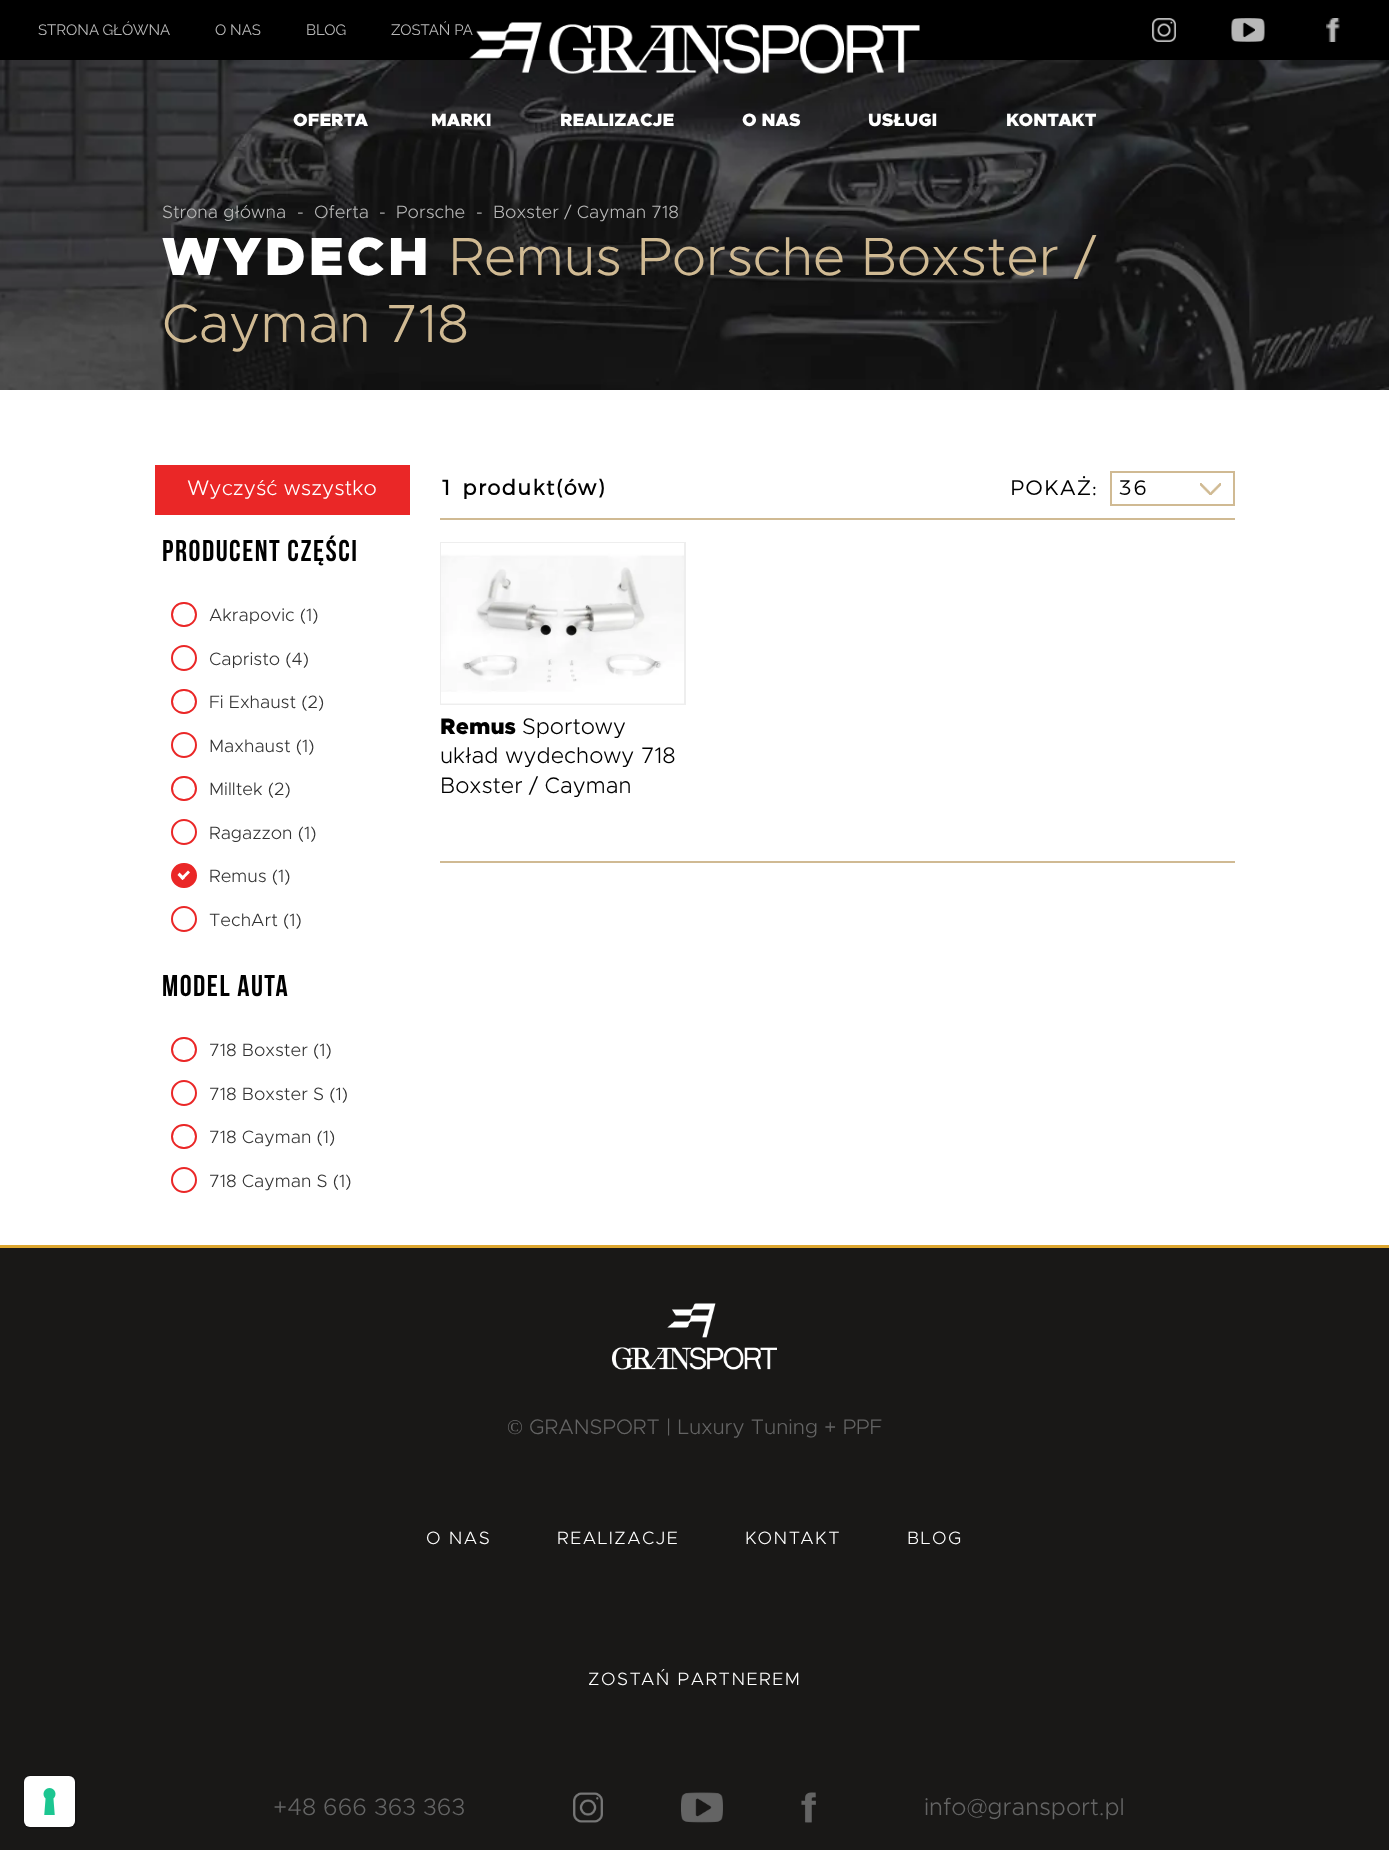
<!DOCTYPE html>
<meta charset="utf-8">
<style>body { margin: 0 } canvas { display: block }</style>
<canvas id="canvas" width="1389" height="1850"></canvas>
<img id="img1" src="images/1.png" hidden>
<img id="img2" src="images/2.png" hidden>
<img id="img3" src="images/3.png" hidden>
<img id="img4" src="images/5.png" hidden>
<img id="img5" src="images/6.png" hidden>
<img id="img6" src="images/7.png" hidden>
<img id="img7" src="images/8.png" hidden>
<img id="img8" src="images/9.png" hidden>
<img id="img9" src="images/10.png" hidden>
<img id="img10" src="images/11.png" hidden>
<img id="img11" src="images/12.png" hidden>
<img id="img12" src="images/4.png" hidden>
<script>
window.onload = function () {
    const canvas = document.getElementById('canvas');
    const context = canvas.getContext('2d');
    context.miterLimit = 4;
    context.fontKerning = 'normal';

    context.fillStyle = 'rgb(0, 0, 0)';
    context.fillRect(0, 0, 1389, 1850);
    context.drawImage(document.getElementById('img1'), 1152, 18, 24, 24);
    context.drawImage(document.getElementById('img2'), 1231, 18, 34, 24);
    context.drawImage(document.getElementById('img3'), 1326, 18, 14, 24);
    context.fillStyle = 'rgb(255, 255, 255)';
    context.fillRect(0, 390, 1389, 855);
    context.drawImage(document.getElementById('img4'), 0, 60, 1389, 330);
    context.fillStyle = 'rgb(234, 39, 39)';
    context.fillRect(155, 465, 255, 50);
    context.beginPath();
    context.roundRect(172, 603, 24, 23, 11.5);
    context.strokeStyle = 'rgb(234, 39, 39)';
    context.lineWidth = 2;
    context.stroke();
    context.beginPath();
    context.arc(184, 658, 12, 0, 2 * Math.PI);
    context.stroke();
    context.beginPath();
    context.roundRect(172, 690, 24, 23, 11.5);
    context.stroke();
    context.beginPath();
    context.arc(184, 745, 12, 0, 2 * Math.PI);
    context.stroke();
    context.beginPath();
    context.roundRect(172, 777, 24, 23, 11.5);
    context.stroke();
    context.beginPath();
    context.arc(184, 832, 12, 0, 2 * Math.PI);
    context.stroke();
    context.beginPath();
    context.roundRect(172, 864, 24, 23, 11.5);
    context.fill();
    context.stroke();
    context.fillStyle = 'rgb(255, 255, 255)';
    context.beginPath();
    context.moveTo(188, 870.5);
    context.lineTo(190, 872.5);
    context.lineTo(182.5, 880);
    context.lineTo(180.5, 878);
    context.closePath();
    context.fill();
    context.beginPath();
    context.moveTo(179.5, 872.5);
    context.lineTo(185, 878);
    context.lineTo(182.5, 880);
    context.lineTo(177.5, 875);
    context.closePath();
    context.fill();
    context.beginPath();
    context.arc(184, 919, 12, 0, 2 * Math.PI);
    context.stroke();
    context.beginPath();
    context.roundRect(172, 1038, 24, 23, 11.5);
    context.stroke();
    context.beginPath();
    context.arc(184, 1093, 12, 0, 2 * Math.PI);
    context.stroke();
    context.beginPath();
    context.roundRect(172, 1125, 24, 23, 11.5);
    context.stroke();
    context.beginPath();
    context.arc(184, 1180, 12, 0, 2 * Math.PI);
    context.stroke();
    context.fillStyle = 'rgb(208, 186, 147)';
    context.fillRect(440, 518, 795, 2);
    context.drawImage(document.getElementById('img5'), 1200, 483, 21, 12);
    context.strokeStyle = 'rgb(208, 186, 147)';
    context.strokeRect(1111, 472, 123, 33);
    context.strokeStyle = 'rgb(238, 238, 238)';
    context.strokeRect(441, 543, 244, 161);
    context.drawImage(document.getElementById('img6'), 441, 543, 243, 161);
    context.fillRect(440, 861, 795, 2);
    context.fillStyle = 'rgb(25, 24, 23)';
    context.fillRect(0, 1248, 1389, 602);
    context.fillStyle = 'rgb(221, 166, 47)';
    context.fillRect(0, 1245, 1389, 3);
    context.drawImage(document.getElementById('img7'), 612, 1303, 165, 67);
    context.drawImage(document.getElementById('img8'), 573, 1792, 30, 31);
    context.drawImage(document.getElementById('img9'), 681, 1792, 42, 31);
    context.drawImage(document.getElementById('img10'), 801, 1792, 15, 31);
    context.beginPath();
    context.roundRect(24, 1776, 52, 52, 7);
    context.strokeStyle = 'rgb(21, 20, 20)';
    context.stroke();
    context.fillStyle = 'rgb(255, 255, 255)';
    context.beginPath();
    context.roundRect(24, 1776, 51, 51, 6);
    context.fill();
    context.drawImage(document.getElementById('img11'), 43, 1788, 13, 27);
    context.font = '15px Raleway';
    context.fillStyle = 'rgb(183, 183, 183)';
    context.fillText('STRONA GŁÓWNA', 38, 35);
    context.fillText('O NAS', 215, 35);
    context.fillText('BLOG', 306, 35);
    context.fillText('ZOSTAŃ PA', 391, 35);
    context.drawImage(document.getElementById('img12'), 469, 22, 451, 52);
    context.font = '900 18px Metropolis';
    context.fillStyle = 'rgb(255, 255, 255)';
    context.fillText('OFERTA', 293, 126);
    context.fillText('MARKI', 431, 126);
    context.fillText('REALIZACJE', 560, 126);
    context.fillText('O NAS', 742, 126);
    context.fillText('USŁUGI', 868, 126);
    context.fillText('KONTAKT', 1006, 126);
    context.font = '300 18px Metropolis';
    context.fillStyle = 'rgb(183, 183, 183)';
    context.fillText('Strona główna', 162, 218);
    context.fillText('-', 297, 218);
    context.fillText('Oferta', 314, 218);
    context.fillText('-', 379, 218);
    context.fillText('Porsche', 396, 218);
    context.fillText('-', 476, 218);
    context.fillText('Boxster / Cayman 718', 493, 218);
    context.letterSpacing = '3px';
    context.font = '900 54px Metropolis';
    context.fillStyle = 'rgb(255, 255, 255)';
    context.fillText('WYDECH', 162, 275);
    context.letterSpacing = '0px';
    context.font = '300 54px Metropolis';
    context.fillStyle = 'rgb(208, 186, 147)';
    context.fillText('Remus Porsche Boxster /', 449, 275);
    context.fillText('Cayman 718', 162, 342);
    context.font = '300 21px Metropolis';
    context.fillStyle = 'rgb(255, 255, 255)';
    context.fillText('Wyczyść wszystko', 187, 495);
    context.letterSpacing = '1.5px';
    context.font = 'bold 30px Bebas Neue';
    context.fillStyle = 'rgb(0, 0, 0)';
    context.fillText('PRODUCENT CZĘŚCI', 162, 561);
    context.letterSpacing = '0px';
    context.font = '300 18px Metropolis';
    context.fillStyle = 'rgb(51, 51, 51)';
    context.fillText('Akrapovic (1)', 209, 621);
    context.fillText('Capristo (4)', 209, 665);
    context.fillText('Fi Exhaust (2)', 209, 708);
    context.fillText('Maxhaust (1)', 209, 752);
    context.fillText('Milltek (2)', 209, 795);
    context.fillText('Ragazzon (1)', 209, 839);
    context.fillText('Remus (1)', 209, 882);
    context.fillText('TechArt (1)', 209, 926);
    context.letterSpacing = '1.5px';
    context.font = 'bold 30px Bebas Neue';
    context.fillStyle = 'rgb(0, 0, 0)';
    context.fillText('MODEL AUTA', 162, 996);
    context.letterSpacing = '0px';
    context.font = '300 18px Metropolis';
    context.fillStyle = 'rgb(51, 51, 51)';
    context.fillText('718 Boxster (1)', 209, 1056);
    context.fillText('718 Boxster S (1)', 209, 1100);
    context.fillText('718 Cayman (1)', 209, 1143);
    context.fillText('718 Cayman S (1)', 209, 1187);
    context.letterSpacing = '1.5px';
    context.font = 'bold 21px Montserrat';
    context.fillStyle = 'rgb(0, 0, 0)';
    context.fillText('1 produkt(ów)', 440, 495);
    context.font = '300 21px Montserrat';
    context.fillText('POKAŻ:', 1010, 495);
    context.fillText('36', 1119, 495);
    context.letterSpacing = '0px';
    context.font = '900 22.5px Metropolis';
    context.fillText('Remus', 440, 734);
    context.font = '300 22.5px Metropolis';
    context.fillText('Sportowy', 522, 734);
    context.fillText('układ wydechowy 718', 440, 763);
    context.fillText('Boxster / Cayman', 440, 793);
    context.font = '21px Liberation Serif';
    context.fillStyle = 'rgb(100, 100, 100)';
    context.fillText('©', 507, 1434);
    context.font = '300 21px Metropolis';
    context.fillText('GRANSPORT | Luxury Tuning + PPF', 529, 1434);
    context.letterSpacing = '1.5px';
    context.font = '300 18px Metropolis';
    context.fillStyle = 'rgb(255, 255, 255)';
    context.fillText('O NAS', 426, 1544);
    context.fillText('REALIZACJE', 557, 1544);
    context.fillText('KONTAKT', 745, 1544);
    context.fillText('BLOG', 907, 1544);
    context.fillText('ZOSTAŃ PARTNEREM', 588, 1685);
    context.letterSpacing = '0px';
    context.font = '300 24px Metropolis';
    context.fillStyle = 'rgb(100, 100, 100)';
    context.fillText('+48 666 363 363', 273, 1815);
    context.fillText('info@gransport.pl', 924, 1815);
};
</script>
